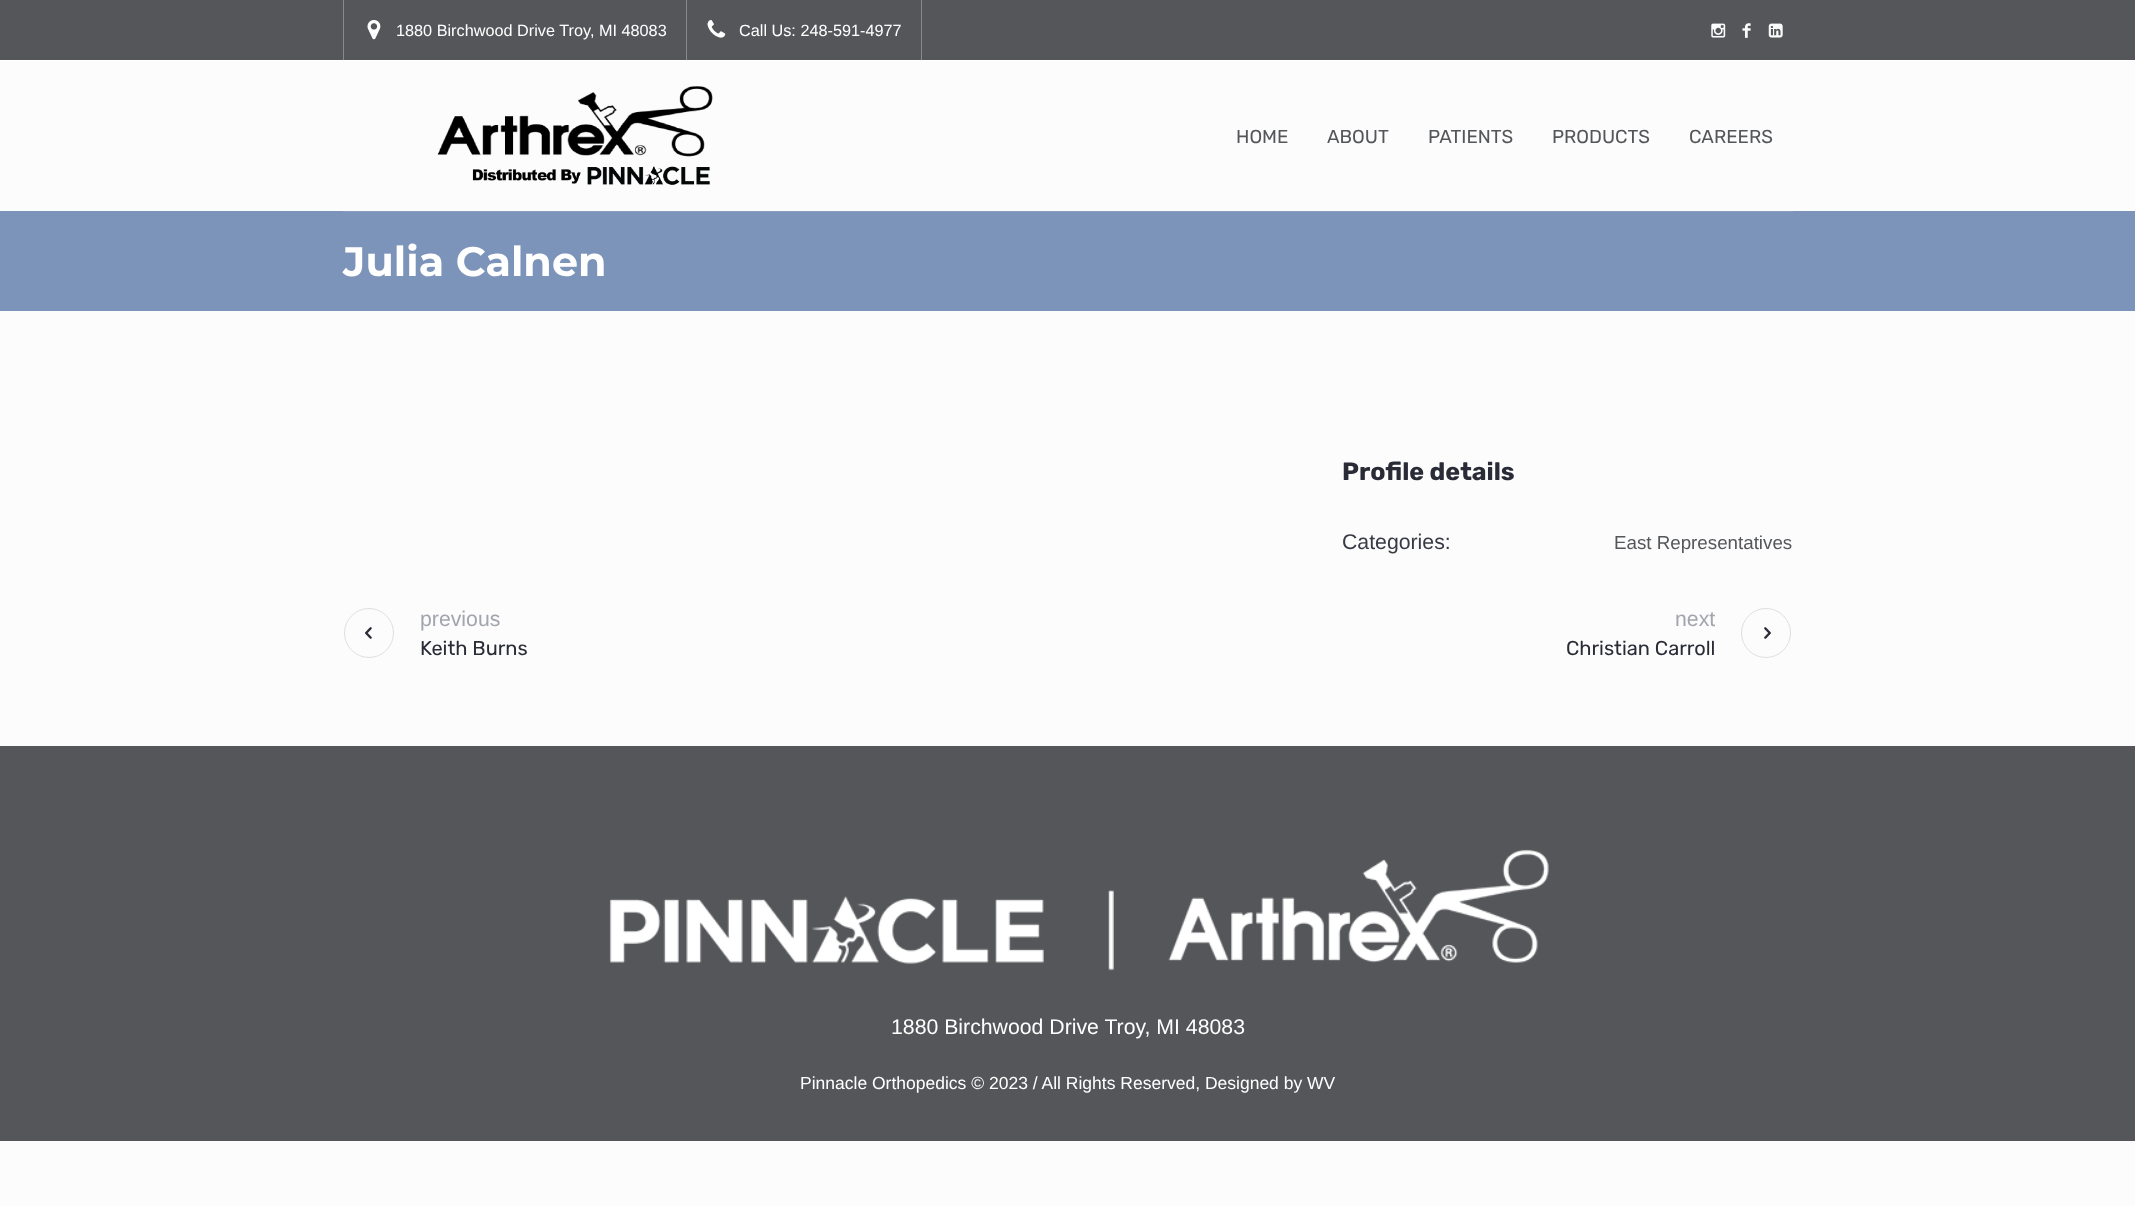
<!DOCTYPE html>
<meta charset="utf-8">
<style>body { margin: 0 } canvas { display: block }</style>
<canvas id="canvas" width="2135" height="1206"></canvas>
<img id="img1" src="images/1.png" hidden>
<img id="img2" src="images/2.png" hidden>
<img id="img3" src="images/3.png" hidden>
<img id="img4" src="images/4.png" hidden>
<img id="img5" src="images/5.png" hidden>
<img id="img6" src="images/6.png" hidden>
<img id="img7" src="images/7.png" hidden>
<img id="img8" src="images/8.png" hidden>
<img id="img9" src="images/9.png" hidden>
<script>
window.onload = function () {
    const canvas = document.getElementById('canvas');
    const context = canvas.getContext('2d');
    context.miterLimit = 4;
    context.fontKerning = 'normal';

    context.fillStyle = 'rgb(252, 252, 252)';
    context.fillRect(0, 0, 2135, 1206);
    context.fillStyle = 'rgb(84, 86, 89)';
    context.fillRect(0, 0, 2135, 60);
    context.fillStyle = 'rgb(135, 137, 139)';
    context.fillRect(921, 0, 1, 61);
    context.fillRect(343, 0, 1, 61);
    context.fillRect(686, 0, 1, 61);
    context.drawImage(document.getElementById('img1'), 367, 20, 14, 20);
    context.drawImage(document.getElementById('img2'), 707, 20, 19, 18);
    context.drawImage(document.getElementById('img3'), 1711, 23, 15, 15);
    context.drawImage(document.getElementById('img4'), 1742, 23, 9, 15);
    context.drawImage(document.getElementById('img5'), 1768, 23, 15, 15);
    context.fillStyle = 'rgb(255, 255, 255)';
    context.fillRect(0, 60, 2135, 1);
    context.drawImage(document.getElementById('img6'), 437, 86, 276, 99);
    context.fillStyle = 'rgb(124, 147, 186)';
    context.fillRect(0, 211, 2135, 100);
    context.fillStyle = 'rgb(137, 158, 193)';
    context.fillRect(343, 211, 1450, 1);
    context.beginPath();
    context.arc(369, 633, 24.5, 0, 2 * Math.PI);
    context.strokeStyle = 'rgb(223, 223, 223)';
    context.stroke();
    context.drawImage(document.getElementById('img7'), 365, 627, 7, 12);
    context.beginPath();
    context.arc(1766, 633, 24.5, 0, 2 * Math.PI);
    context.stroke();
    context.drawImage(document.getElementById('img8'), 1764, 627, 7, 12);
    context.fillStyle = 'rgb(84, 86, 89)';
    context.fillRect(0, 746, 2135, 395);
    context.drawImage(document.getElementById('img9'), 609, 849, 940, 122);
    context.font = '16.25px Arimo';
    context.fillStyle = 'rgb(255, 255, 255)';
    context.fillText('1880 Birchwood Drive Troy, MI 48083', 396, 36);
    context.fillText('Call Us: 248-591-4977', 739, 36);
    context.font = '18.75px Rubik';
    context.fillStyle = 'rgb(84, 86, 89)';
    context.fillText('HOME', 1236, 143);
    context.fillText('ABOUT', 1327, 143);
    context.fillText('PATIENTS', 1428, 143);
    context.fillText('PRODUCTS', 1552, 143);
    context.fillText('CAREERS', 1689, 143);
    context.font = 'bold 41.25px Montserrat';
    context.fillStyle = 'rgb(255, 255, 255)';
    context.fillText('Julia Calnen', 343, 276);
    context.font = 'bold 25px Rubik';
    context.fillStyle = 'rgb(41, 43, 54)';
    context.fillText('Profile details', 1342, 480);
    context.font = '21.25px Arimo';
    context.fillStyle = 'rgb(56, 59, 70)';
    context.fillText('Categories:', 1342, 549);
    context.font = '18.75px Arimo';
    context.fillStyle = 'rgb(84, 86, 89)';
    context.fillText('East Representatives', 1614, 549);
    context.font = '21.25px Arimo';
    context.fillStyle = 'rgb(162, 165, 173)';
    context.fillText('previous', 420, 626);
    context.font = '20px Rubik';
    context.fillStyle = 'rgb(41, 43, 54)';
    context.fillText('Keith Burns', 420, 655);
    context.font = '21.25px Arimo';
    context.fillStyle = 'rgb(162, 165, 173)';
    context.fillText('next', 1675, 626);
    context.font = '20px Rubik';
    context.fillStyle = 'rgb(41, 43, 54)';
    context.fillText('Christian Carroll', 1566, 655);
    context.font = '21.25px Arimo';
    context.fillStyle = 'rgb(255, 255, 255)';
    context.fillText('1880 Birchwood Drive Troy, MI 48083', 891, 1034);
    context.font = '17.5px Arimo';
    context.fillText('Pinnacle Orthopedics © 2023 / All Rights Reserved, Designed by WV', 800, 1089);
};
</script>
